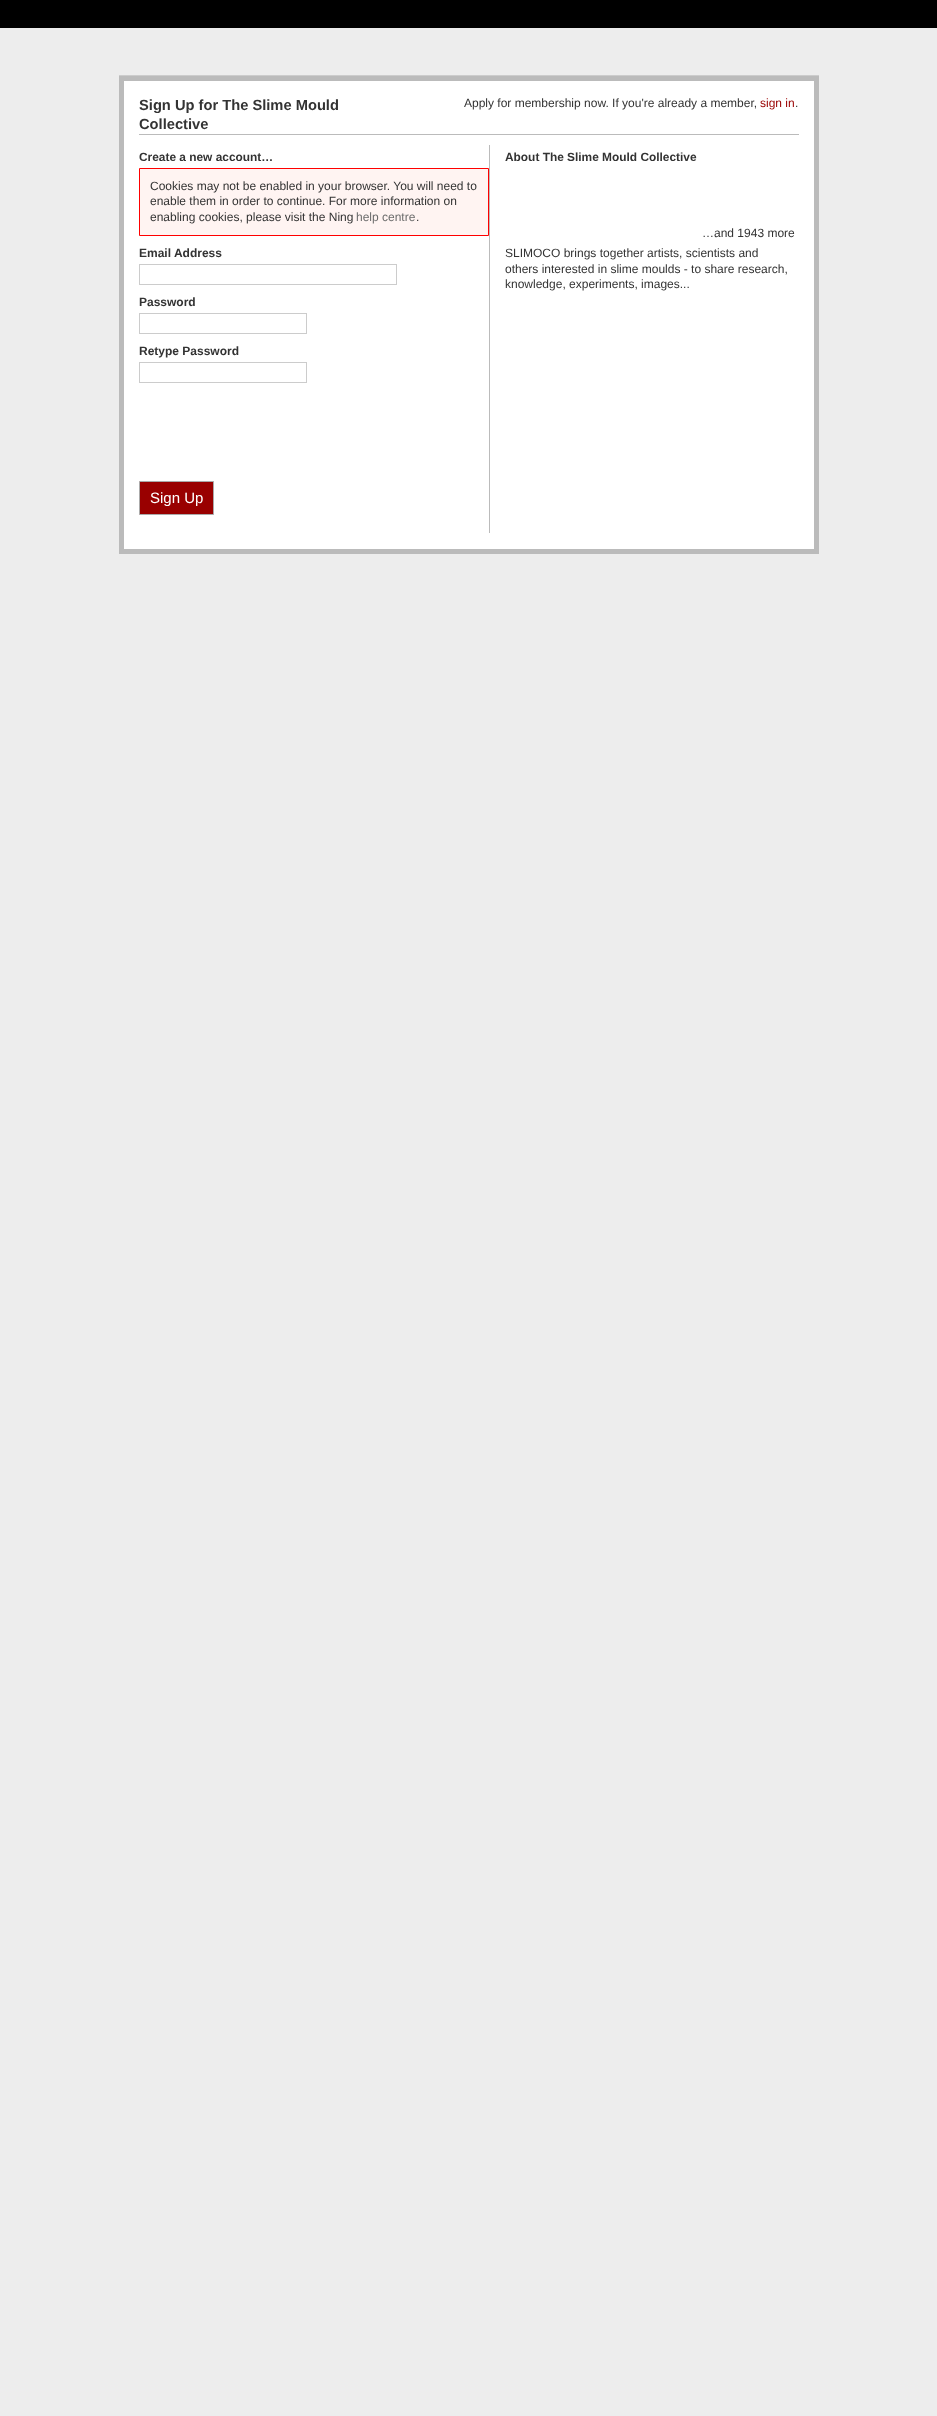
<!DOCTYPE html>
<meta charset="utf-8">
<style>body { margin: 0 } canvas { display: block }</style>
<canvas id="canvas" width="937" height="2416"></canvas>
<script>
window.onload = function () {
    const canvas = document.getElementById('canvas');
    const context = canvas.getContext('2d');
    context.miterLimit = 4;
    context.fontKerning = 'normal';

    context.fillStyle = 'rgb(237, 237, 237)';
    context.fillRect(0, 0, 937, 2416);
    context.fillStyle = 'rgb(0, 0, 0)';
    context.fillRect(0, 0, 937, 28);
    context.fillStyle = 'rgb(204, 204, 204)';
    context.fillRect(119, 75, 700, 1);
    context.fillStyle = 'rgb(255, 255, 255)';
    context.beginPath();
    context.rect(121.5, 78.5, 695, 473);
    context.fill();
    context.strokeStyle = 'rgb(187, 187, 187)';
    context.lineWidth = 5;
    context.stroke();
    context.fillStyle = 'rgb(187, 187, 187)';
    context.fillRect(139, 134, 660, 1);
    context.fillRect(489, 145, 1, 388);
    context.fillStyle = 'rgb(255, 244, 242)';
    context.beginPath();
    context.rect(139.5, 168.5, 349, 67);
    context.fill();
    context.strokeStyle = 'rgb(255, 0, 0)';
    context.lineWidth = 1;
    context.stroke();
    context.strokeStyle = 'rgb(204, 204, 204)';
    context.strokeRect(139.5, 264.5, 257, 20);
    context.strokeRect(139.5, 313.5, 167, 20);
    context.strokeRect(139.5, 362.5, 167, 20);
    context.fillStyle = 'rgb(153, 0, 0)';
    context.beginPath();
    context.rect(139.5, 481.5, 74, 33);
    context.fill();
    context.strokeStyle = 'rgb(170, 170, 170)';
    context.stroke();
    context.font = 'bold 14.7px Liberation Sans';
    context.fillStyle = 'rgb(51, 51, 51)';
    context.fillText('Sign Up for The Slime Mould', 139, 110);
    context.fillText('Collective', 139, 129);
    context.font = '12px Liberation Sans';
    context.fillText('Apply for membership now. If you\'re already a member,', 464, 107);
    context.fillStyle = 'rgb(153, 0, 0)';
    context.fillText('sign in', 760, 107);
    context.fillStyle = 'rgb(51, 51, 51)';
    context.fillText('.', 795, 107);
    context.font = 'bold 11.9px Liberation Sans';
    context.fillText('Create a new account…', 139, 161);
    context.font = '12px Liberation Sans';
    context.fillText('Cookies may not be enabled in your browser. You will need to', 150, 190);
    context.fillText('enable them in order to continue. For more information on', 150, 205);
    context.fillText('enabling cookies, please visit the Ning', 150, 221);
    context.fillStyle = 'rgb(108, 108, 108)';
    context.fillText('help centre', 356, 221);
    context.fillStyle = 'rgb(51, 51, 51)';
    context.fillText('.', 416, 221);
    context.font = 'bold 12px Liberation Sans';
    context.fillText('Email Address', 139, 257);
    context.fillText('Password', 139, 306);
    context.fillText('Retype Password', 139, 355);
    context.font = '15px Liberation Sans';
    context.fillStyle = 'rgb(255, 255, 255)';
    context.fillText('Sign Up', 150, 503);
    context.font = 'bold 11.9px Liberation Sans';
    context.fillStyle = 'rgb(51, 51, 51)';
    context.fillText('About The Slime Mould Collective', 505, 161);
    context.font = '12px Liberation Sans';
    context.fillText('…and 1943 more', 702, 237);
    context.fillText('SLIMOCO brings together artists, scientists and', 505, 257);
    context.fillText('others interested in slime moulds - to share research,', 505, 273);
    context.fillText('knowledge, experiments, images...', 505, 288);
};
</script>
